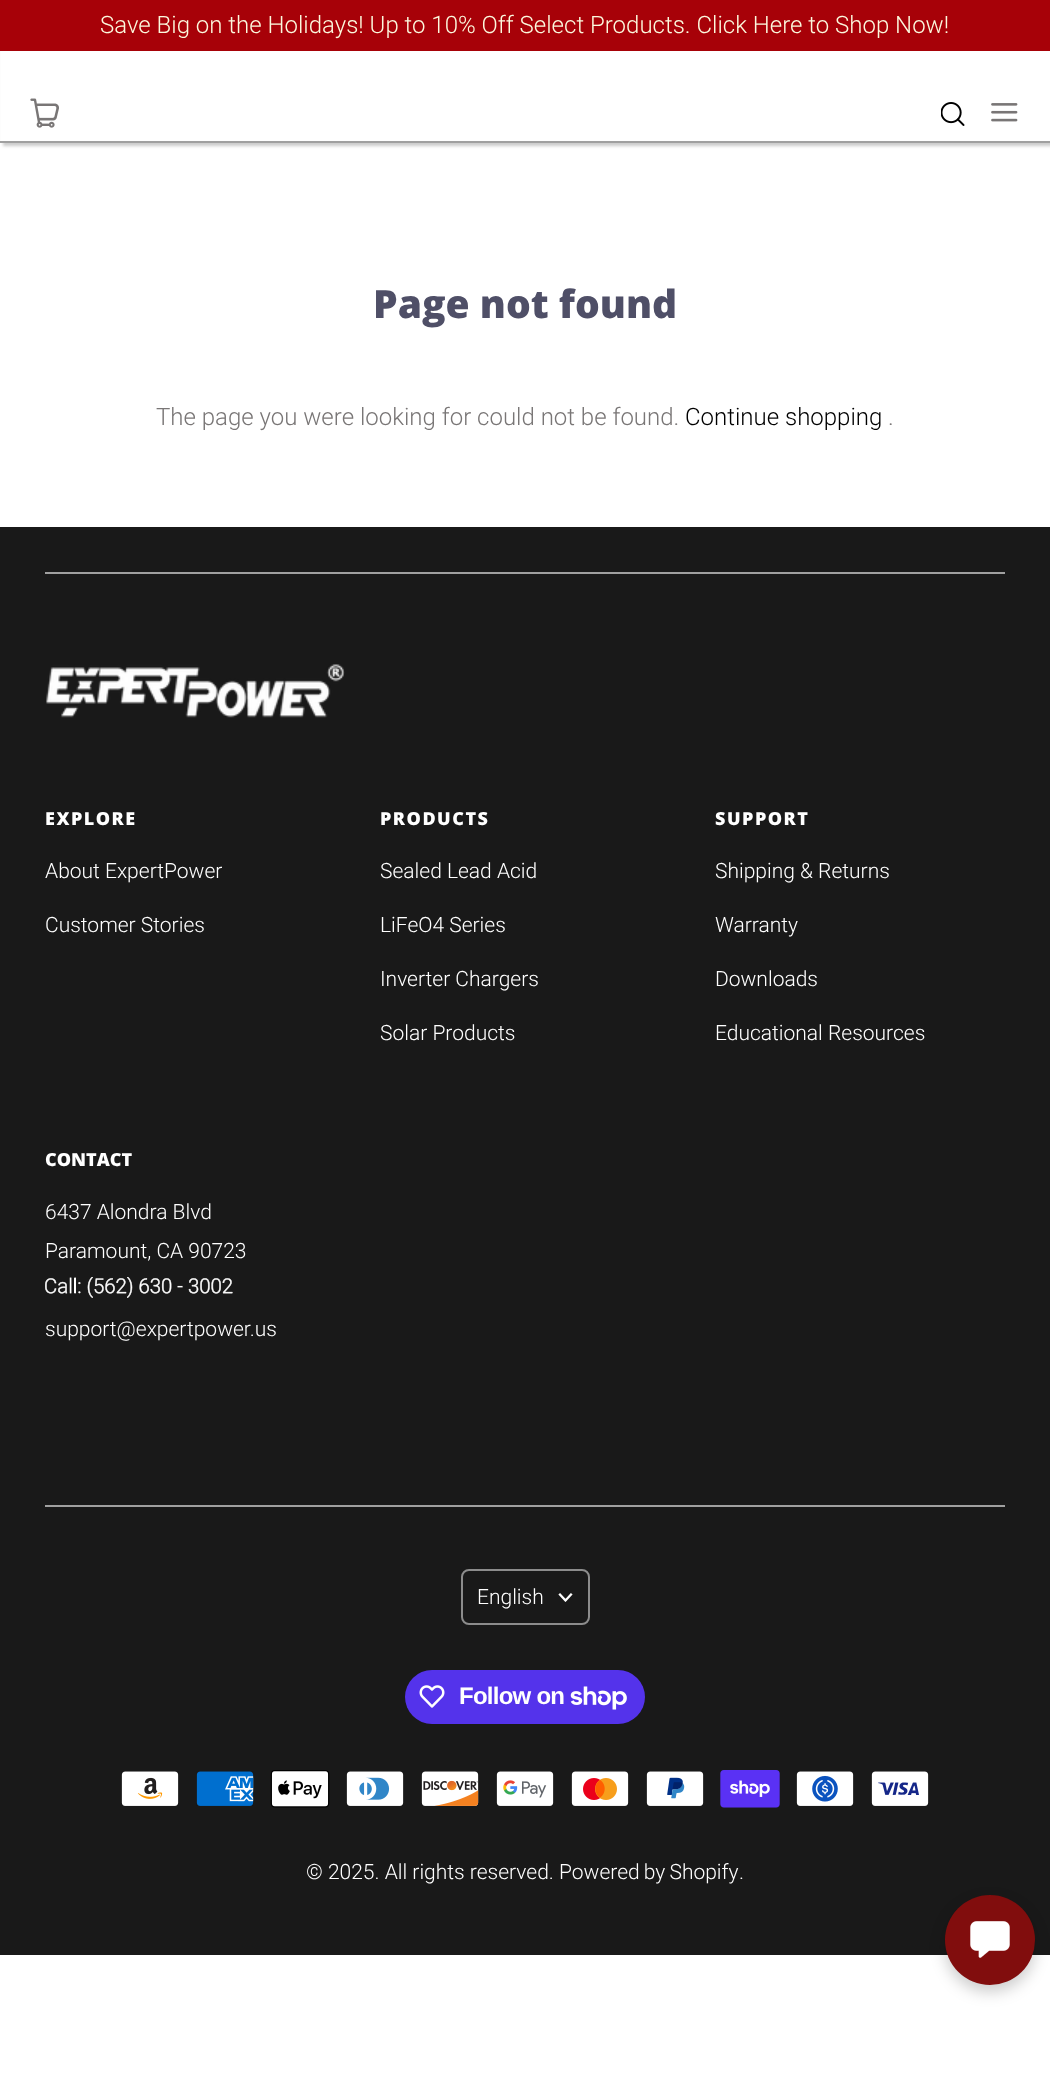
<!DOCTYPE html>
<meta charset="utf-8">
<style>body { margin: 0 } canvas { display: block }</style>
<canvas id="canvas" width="1050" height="2089"></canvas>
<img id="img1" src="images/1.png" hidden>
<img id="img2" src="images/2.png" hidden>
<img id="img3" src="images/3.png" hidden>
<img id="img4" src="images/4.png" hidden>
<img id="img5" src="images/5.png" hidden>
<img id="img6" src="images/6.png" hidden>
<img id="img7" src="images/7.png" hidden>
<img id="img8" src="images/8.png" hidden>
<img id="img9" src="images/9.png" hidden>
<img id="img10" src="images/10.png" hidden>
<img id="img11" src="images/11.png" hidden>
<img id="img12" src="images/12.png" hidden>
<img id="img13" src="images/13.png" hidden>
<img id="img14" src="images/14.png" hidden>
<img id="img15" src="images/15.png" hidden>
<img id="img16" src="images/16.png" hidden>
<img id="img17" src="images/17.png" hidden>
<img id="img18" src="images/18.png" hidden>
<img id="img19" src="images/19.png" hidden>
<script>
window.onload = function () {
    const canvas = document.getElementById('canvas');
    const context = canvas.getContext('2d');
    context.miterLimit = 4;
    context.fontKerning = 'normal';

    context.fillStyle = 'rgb(255, 255, 255)';
    context.fillRect(0, 0, 1050, 2089);
    context.fillStyle = 'rgba(0, 0, 0, 0.2)';
    context.filter = 'blur(1.5px)';
    context.beginPath();
    context.rect(3, 3, 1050, 143);
    context.fill();
    context.filter = 'none';
    context.fillStyle = 'rgb(255, 255, 255)';
    context.fillRect(1, 51, 1049, 90);
    context.fillStyle = 'rgb(160, 160, 160)';
    context.fillRect(0, 141, 1050, 2);
    context.drawImage(document.getElementById('img1'), 30, 98, 29, 30);
    context.drawImage(document.getElementById('img2'), 941, 102, 24, 24);
    context.drawImage(document.getElementById('img3'), 991, 103, 27, 19);
    context.fillStyle = 'rgb(167, 1, 8)';
    context.fillRect(0, 0, 1050, 51);
    context.fillStyle = 'rgb(25, 25, 25)';
    context.fillRect(0, 527, 1050, 1428);
    context.fillStyle = 'rgb(160, 160, 160)';
    context.fillRect(45, 572, 960, 2);
    context.drawImage(document.getElementById('img4'), 46, 664, 299, 54);
    context.drawImage(document.getElementById('img5'), 45, 1277, 188, 21);
    context.fillRect(45, 1505, 960, 2);
    context.beginPath();
    context.roundRect(462, 1570, 127, 54, 7);
    context.strokeStyle = 'rgb(140, 140, 140)';
    context.lineWidth = 2;
    context.stroke();
    context.beginPath();
    context.moveTo(565.5, 1600.5);
    context.lineTo(571, 1594.5);
    context.moveTo(565.5, 1600.5);
    context.lineTo(560, 1594.5);
    context.strokeStyle = 'rgb(255, 255, 255)';
    context.lineWidth = 2.3;
    context.lineCap = 'square';
    context.stroke();
    context.fillStyle = 'rgb(84, 51, 235)';
    context.beginPath();
    context.roundRect(405, 1670, 240, 54, 27);
    context.fill();
    context.drawImage(document.getElementById('img6'), 419, 1685, 26, 23);
    context.drawImage(document.getElementById('img7'), 570, 1686, 57, 24);
    context.drawImage(document.getElementById('img8'), 121, 1771, 58, 35);
    context.drawImage(document.getElementById('img9'), 196, 1771, 58, 35);
    context.drawImage(document.getElementById('img10'), 270, 1770, 60, 38);
    context.drawImage(document.getElementById('img11'), 346, 1771, 58, 35);
    context.drawImage(document.getElementById('img12'), 421, 1771, 58, 35);
    context.drawImage(document.getElementById('img13'), 496, 1771, 58, 35);
    context.drawImage(document.getElementById('img14'), 571, 1771, 58, 35);
    context.drawImage(document.getElementById('img15'), 646, 1771, 58, 35);
    context.drawImage(document.getElementById('img16'), 720, 1770, 60, 38);
    context.drawImage(document.getElementById('img17'), 796, 1771, 58, 35);
    context.drawImage(document.getElementById('img18'), 871, 1771, 58, 35);
    context.fillStyle = 'rgba(0, 0, 0, 0.2)';
    context.filter = 'blur(7.5px)';
    context.beginPath();
    context.roundRect(945, 1902, 90, 90, 45);
    context.fill();
    context.filter = 'none';
    context.fillStyle = 'rgb(129, 13, 13)';
    context.beginPath();
    context.arc(990, 1940, 45, 0, 2 * Math.PI);
    context.fill();
    context.drawImage(document.getElementById('img19'), 970, 1921, 40, 37);
    context.font = '300 24px Roboto';
    context.fillStyle = 'rgb(252, 249, 222)';
    context.fillText('Save Big on the Holidays! Up to 10% Off Select Products. Click Here to Shop Now!', 100, 33);
    context.font = '800 39px Open Sans';
    context.fillStyle = 'rgb(79, 79, 103)';
    context.fillText('Page not found', 373, 318);
    context.font = '300 24px Roboto';
    context.fillStyle = 'rgb(121, 118, 118)';
    context.fillText('The page you were looking for could not be found.', 156, 425);
    context.fillStyle = 'rgb(0, 0, 0)';
    context.fillText('Continue shopping', 685, 425);
    context.fillStyle = 'rgb(121, 118, 118)';
    context.fillText('.', 888, 425);
    context.letterSpacing = '1.5px';
    context.font = '800 18px Open Sans';
    context.fillStyle = 'rgb(255, 255, 255)';
    context.fillText('EXPLORE', 45, 825);
    context.letterSpacing = '0px';
    context.font = '300 21px Roboto';
    context.fillText('About ExpertPower', 45, 878);
    context.fillText('Customer Stories', 45, 932);
    context.letterSpacing = '1.5px';
    context.font = '800 18px Open Sans';
    context.fillText('PRODUCTS', 380, 825);
    context.letterSpacing = '0px';
    context.font = '300 21px Roboto';
    context.fillText('Sealed Lead Acid', 380, 878);
    context.fillText('LiFeO4 Series', 380, 932);
    context.fillText('Inverter Chargers', 380, 986);
    context.fillText('Solar Products', 380, 1040);
    context.letterSpacing = '1.5px';
    context.font = '800 18px Open Sans';
    context.fillText('SUPPORT', 715, 825);
    context.letterSpacing = '0px';
    context.font = '300 21px Roboto';
    context.fillText('Shipping & Returns', 715, 878);
    context.fillText('Warranty', 715, 932);
    context.fillText('Downloads', 715, 986);
    context.fillText('Educational Resources', 715, 1040);
    context.font = '800 18px Open Sans';
    context.fillText('CONTACT', 45, 1166);
    context.font = '300 21px Roboto';
    context.fillText('6437 Alondra Blvd', 45, 1219);
    context.fillText('Paramount, CA 90723', 45, 1258);
    context.fillText('support@expertpower.us', 45, 1336);
    context.fillText('English', 477, 1604);
    context.letterSpacing = '-0.75px';
    context.font = 'bold 24px Liberation Sans';
    context.fillText('Follow on', 459, 1704);
    context.letterSpacing = '0px';
    context.font = '300 21px Roboto';
    context.fillText('© 2025. All rights reserved.', 306, 1879);
    context.wordSpacing = '-1px';
    context.fillText('Powered by Shopify', 559, 1879);
    context.wordSpacing = '0px';
    context.fillText('.', 739, 1879);
};
</script>
